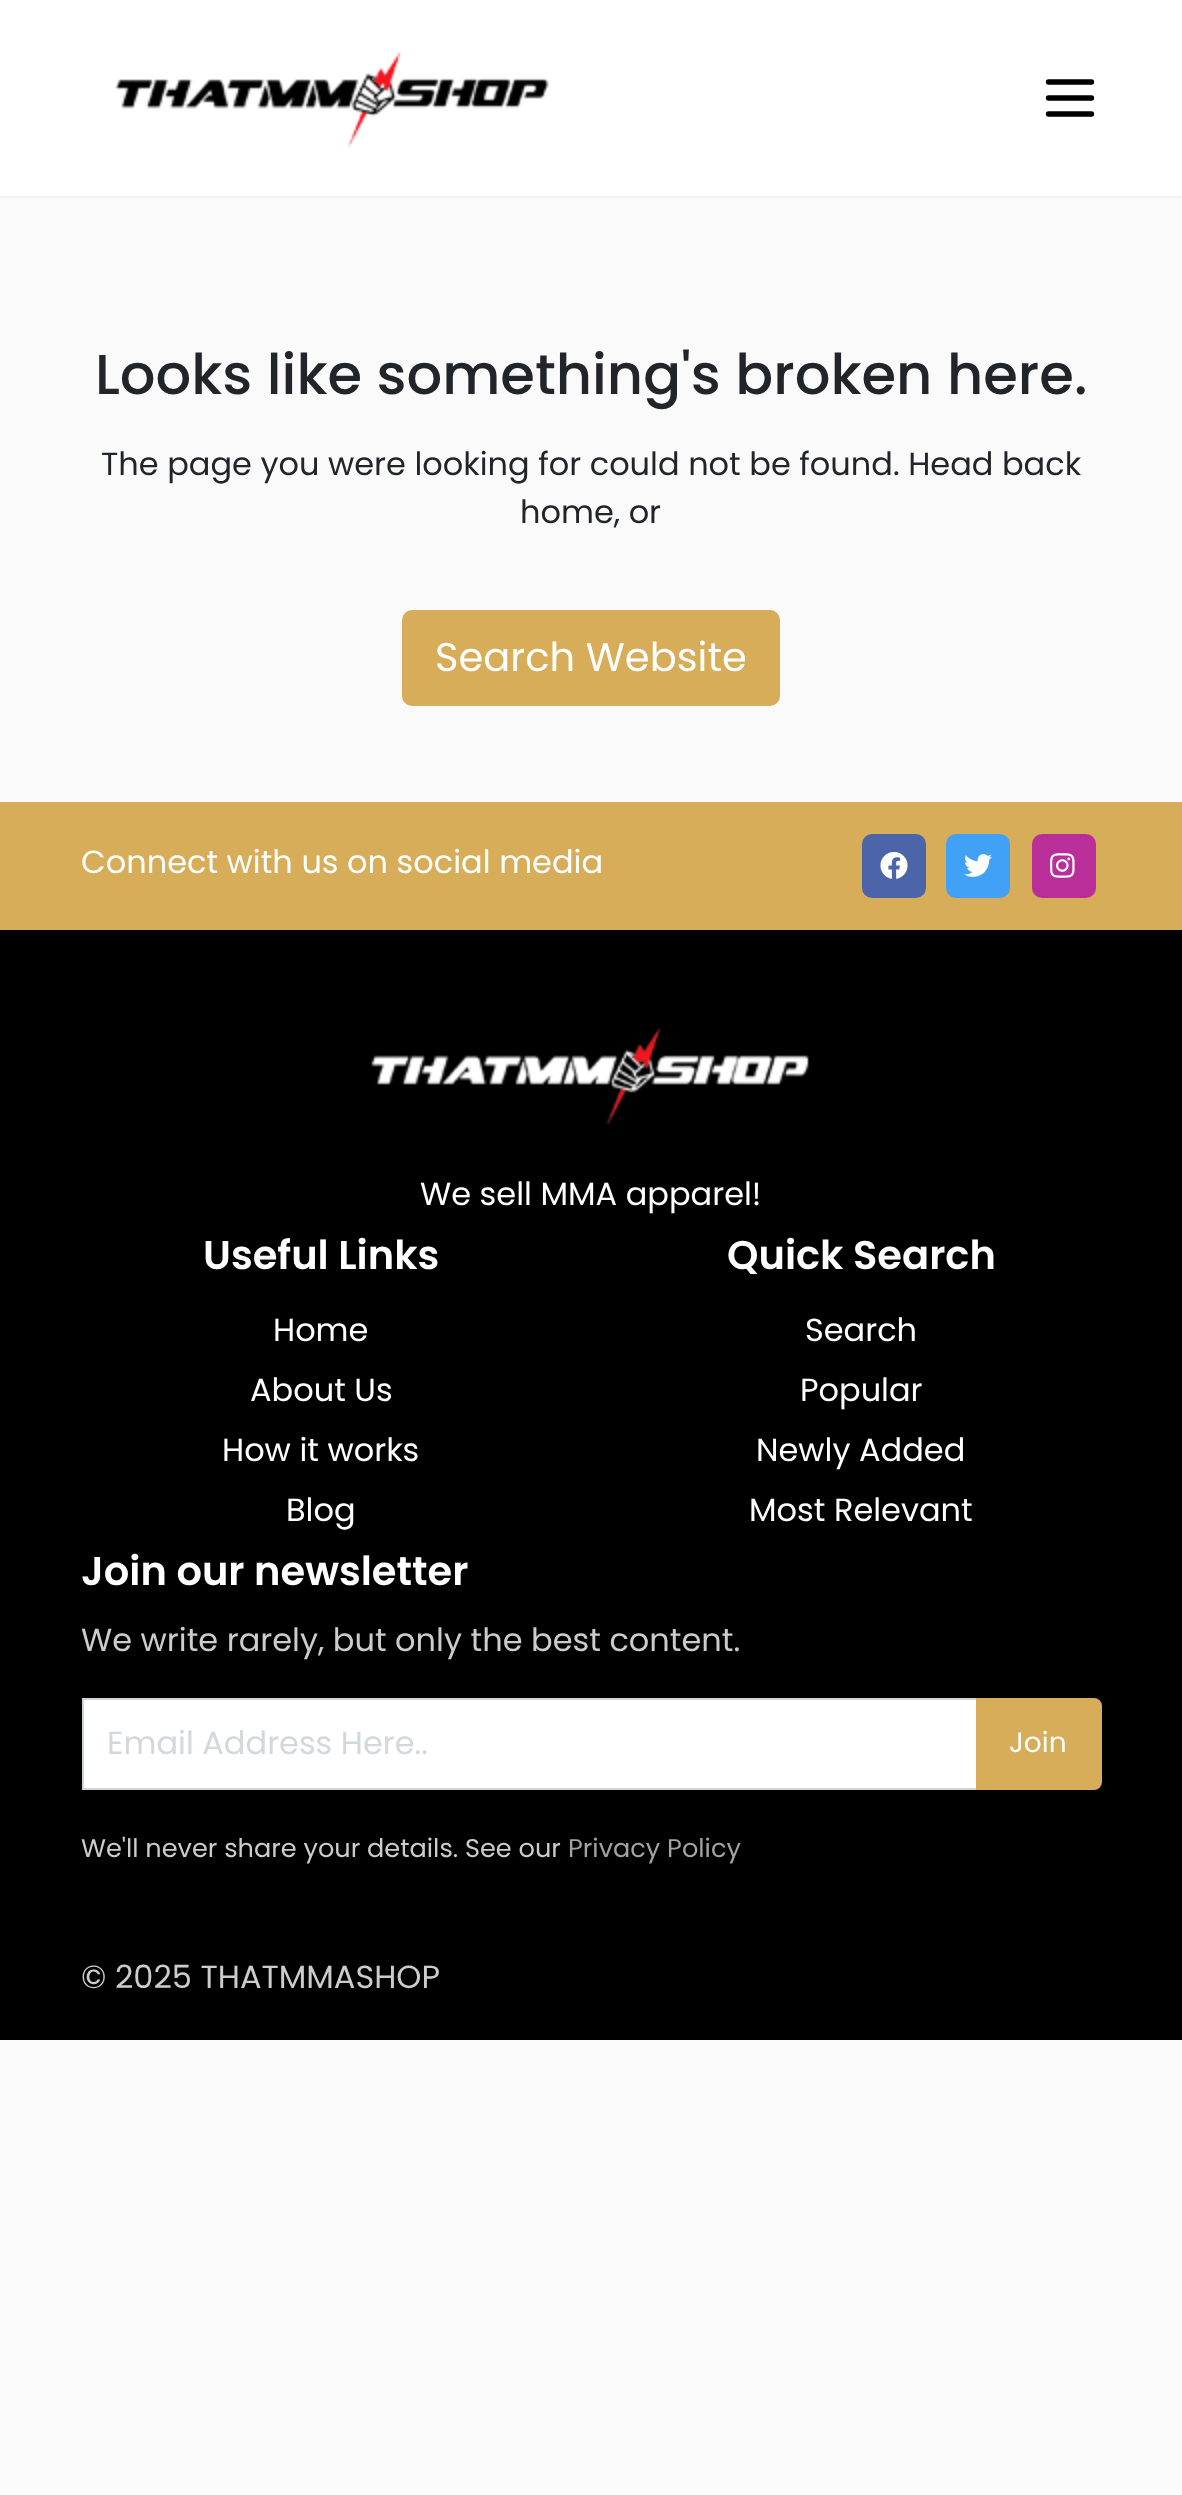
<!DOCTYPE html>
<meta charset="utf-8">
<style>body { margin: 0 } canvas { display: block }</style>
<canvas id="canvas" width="1182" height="2495"></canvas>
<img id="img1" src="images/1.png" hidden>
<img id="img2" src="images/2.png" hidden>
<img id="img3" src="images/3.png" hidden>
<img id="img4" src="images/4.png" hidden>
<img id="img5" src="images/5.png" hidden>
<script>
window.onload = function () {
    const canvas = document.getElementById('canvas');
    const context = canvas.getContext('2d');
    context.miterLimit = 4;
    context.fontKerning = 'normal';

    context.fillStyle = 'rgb(250, 250, 251)';
    context.fillRect(0, 0, 1182, 2495);
    context.fillStyle = 'rgb(255, 255, 255)';
    context.fillRect(0, 0, 1182, 196);
    context.fillStyle = 'rgb(242, 242, 242)';
    context.fillRect(0, 196, 1182, 2);
    context.drawImage(document.getElementById('img1'), 115, 51, 434, 97);
    context.beginPath();
    context.moveTo(1048.5, 82);
    context.lineTo(1091.5, 82);
    context.moveTo(1048.5, 98);
    context.lineTo(1091.5, 98);
    context.moveTo(1048.5, 114);
    context.lineTo(1091.5, 114);
    context.strokeStyle = 'rgb(0, 0, 0)';
    context.lineWidth = 5.3;
    context.lineCap = 'round';
    context.lineJoin = 'round';
    context.stroke();
    context.fillStyle = 'rgb(216, 173, 89)';
    context.beginPath();
    context.roundRect(403, 611, 376, 94, 9);
    context.fill();
    context.strokeStyle = 'rgb(216, 173, 89)';
    context.lineWidth = 2;
    context.lineJoin = 'miter';
    context.stroke();
    context.fillRect(0, 802, 1182, 128);
    context.fillStyle = 'rgb(76, 101, 168)';
    context.beginPath();
    context.roundRect(862, 834, 64, 64, 10);
    context.fill();
    context.drawImage(document.getElementById('img2'), 880, 852, 28, 27);
    context.fillStyle = 'rgb(65, 161, 246)';
    context.beginPath();
    context.roundRect(946, 834, 64, 64, 10);
    context.fill();
    context.drawImage(document.getElementById('img3'), 964, 854, 28, 23);
    context.fillStyle = 'rgb(186, 46, 154)';
    context.beginPath();
    context.roundRect(1032, 834, 64, 64, 10);
    context.fill();
    context.drawImage(document.getElementById('img4'), 1050, 853, 25, 25);
    context.fillStyle = 'rgb(0, 0, 0)';
    context.fillRect(0, 930, 1182, 1110);
    context.drawImage(document.getElementById('img5'), 371, 1027, 438, 98);
    context.fillStyle = 'rgb(255, 255, 255)';
    context.beginPath();
    context.rect(83, 1699, 894, 90);
    context.fill();
    context.strokeStyle = 'rgb(206, 212, 218)';
    context.stroke();
    context.fillStyle = 'rgb(216, 173, 89)';
    context.beginPath();
    context.roundRect(977, 1699, 124, 90, [0, 7, 7, 0]);
    context.fill();
    context.strokeStyle = 'rgb(216, 173, 89)';
    context.stroke();
    context.font = '500 56px Poppins';
    context.fillStyle = 'rgb(33, 37, 41)';
    context.fillText('Looks like something\'s broken here.', 95, 394);
    context.font = '32px Poppins';
    context.fillText('The page you were looking for could not be found. Head back', 101, 475);
    context.fillText('home, or', 520, 523);
    context.font = '40px Poppins';
    context.fillStyle = 'rgb(255, 255, 255)';
    context.fillText('Search Website', 435, 671);
    context.font = '32px Poppins';
    context.fillText('Connect with us on social media', 81, 873);
    context.fillText('We sell MMA apparel!', 420, 1205);
    context.font = '600 40px Poppins';
    context.fillText('Useful Links', 203, 1269);
    context.font = '32px Poppins';
    context.fillText('Home', 273, 1341);
    context.fillText('About Us', 250, 1401);
    context.fillText('How it works', 222, 1461);
    context.fillText('Blog', 286, 1521);
    context.font = '600 40px Poppins';
    context.fillText('Quick Search', 727, 1269);
    context.font = '32px Poppins';
    context.fillText('Search', 805, 1341);
    context.fillText('Popular', 800, 1401);
    context.fillText('Newly Added', 756, 1461);
    context.fillText('Most Relevant', 749, 1521);
    context.font = '600 40px Poppins';
    context.fillText('Join our newsletter', 81, 1585);
    context.font = '32px Poppins';
    context.fillStyle = 'rgb(204, 204, 204)';
    context.fillText('We write rarely, but only the best content.', 81, 1651);
    context.fillStyle = 'rgb(210, 216, 221)';
    context.fillText('Email Address Here..', 107, 1754);
    context.font = '28px Poppins';
    context.fillStyle = 'rgb(255, 255, 255)';
    context.fillText('Join', 1009, 1752);
    context.font = '25.6px Poppins';
    context.fillStyle = 'rgb(204, 204, 204)';
    context.fillText('We\'ll never share your details. See our', 81, 1857);
    context.fillStyle = 'rgb(163, 163, 163)';
    context.fillText('Privacy Policy', 568, 1857);
    context.font = '32px Poppins';
    context.fillStyle = 'rgb(204, 204, 204)';
    context.fillText('© 2025 THATMMASHOP', 81, 1988);
};
</script>
